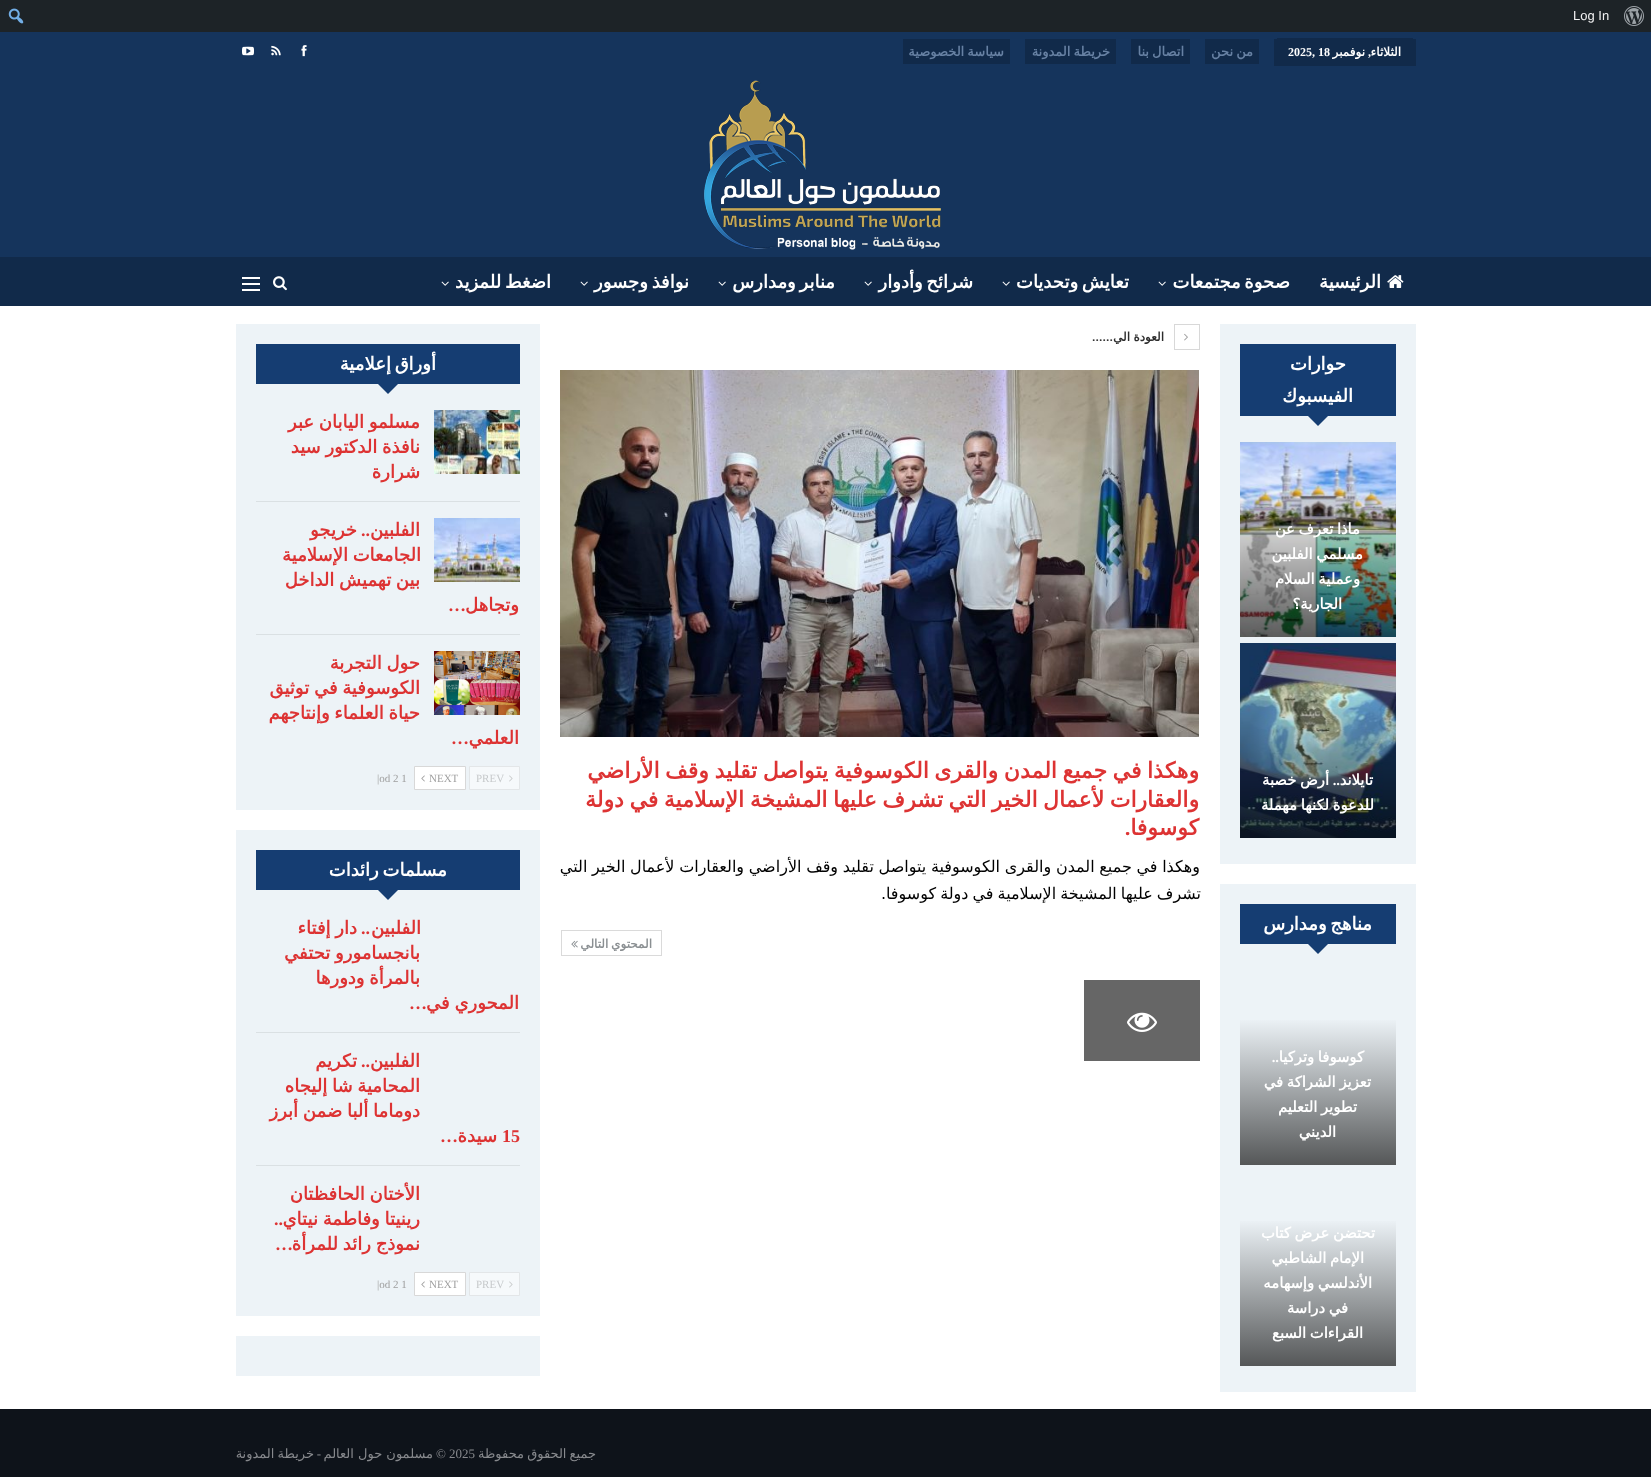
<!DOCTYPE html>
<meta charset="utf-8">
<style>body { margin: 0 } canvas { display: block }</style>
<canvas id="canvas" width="1651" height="1477"></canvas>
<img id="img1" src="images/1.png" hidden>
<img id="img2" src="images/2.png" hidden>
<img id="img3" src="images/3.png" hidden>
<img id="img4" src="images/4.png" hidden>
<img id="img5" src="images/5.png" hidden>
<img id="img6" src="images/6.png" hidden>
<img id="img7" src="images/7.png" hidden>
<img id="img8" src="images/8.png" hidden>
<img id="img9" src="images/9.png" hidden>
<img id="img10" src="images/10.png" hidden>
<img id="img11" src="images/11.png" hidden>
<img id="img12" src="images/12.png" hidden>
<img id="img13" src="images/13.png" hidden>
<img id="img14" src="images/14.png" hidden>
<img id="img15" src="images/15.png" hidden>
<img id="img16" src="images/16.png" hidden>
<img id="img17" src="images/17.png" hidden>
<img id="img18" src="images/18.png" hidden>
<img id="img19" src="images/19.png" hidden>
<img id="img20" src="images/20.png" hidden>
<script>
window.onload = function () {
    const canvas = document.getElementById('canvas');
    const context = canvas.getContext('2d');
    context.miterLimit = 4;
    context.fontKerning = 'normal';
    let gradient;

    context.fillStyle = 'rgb(255, 255, 255)';
    context.fillRect(0, 0, 1651, 1477);
    context.fillStyle = 'rgb(21, 52, 92)';
    context.fillRect(0, 32, 1651, 225);
    context.fillStyle = 'rgb(29, 35, 39)';
    context.fillRect(0, 0, 1651, 32);
    context.drawImage(document.getElementById('img1'), 1624, 6, 20, 20);
    context.drawImage(document.getElementById('img2'), 8, 8, 16, 16);
    context.fillStyle = 'rgb(17, 42, 74)';
    context.fillRect(1274, 39, 142, 27);
    context.fillRect(1277, 38, 136, 1);
    context.fillRect(1205, 39, 54, 25);
    context.fillRect(1131, 39, 59, 25);
    context.fillRect(1025, 39, 91, 25);
    context.fillRect(903, 39, 107, 25);
    context.drawImage(document.getElementById('img3'), 301, 45, 6, 12);
    context.drawImage(document.getElementById('img4'), 271, 45, 10, 11);
    context.drawImage(document.getElementById('img5'), 242, 46, 12, 10);
    context.drawImage(document.getElementById('img6'), 704, 80, 237, 170);
    context.fillRect(0, 257, 1651, 49);
    context.drawImage(document.getElementById('img7'), 1387, 275, 17, 13);
    context.drawImage(document.getElementById('img8'), 1158, 281, 8, 5);
    context.drawImage(document.getElementById('img8'), 1002, 281, 8, 5);
    context.drawImage(document.getElementById('img8'), 864, 281, 8, 5);
    context.drawImage(document.getElementById('img8'), 718, 281, 8, 5);
    context.drawImage(document.getElementById('img8'), 580, 281, 8, 5);
    context.drawImage(document.getElementById('img8'), 441, 281, 8, 5);
    context.drawImage(document.getElementById('img9'), 273, 276, 14, 15);
    context.fillStyle = 'rgb(255, 255, 255)';
    context.fillRect(242, 283, 18, 2);
    context.fillRect(242, 277, 18, 2);
    context.fillRect(242, 289, 18, 2);
    context.fillStyle = 'rgb(237, 243, 247)';
    context.fillRect(1220, 324, 196, 540);
    context.fillStyle = 'rgb(21, 61, 114)';
    context.fillRect(1240, 344, 156, 72);
    context.beginPath();
    context.moveTo(1308, 416);
    context.lineTo(1328, 416);
    context.lineTo(1318, 426);
    context.closePath();
    context.fill();
    context.drawImage(document.getElementById('img10'), 1240, 442, 156, 195);
    context.drawImage(document.getElementById('img11'), 1240, 643, 156, 195);
    context.fillStyle = 'rgb(237, 243, 247)';
    context.fillRect(1220, 884, 196, 508);
    context.fillStyle = 'rgb(21, 61, 114)';
    context.fillRect(1240, 904, 156, 40);
    context.beginPath();
    context.moveTo(1308, 944);
    context.lineTo(1328, 944);
    context.lineTo(1318, 954);
    context.closePath();
    context.fill();
    gradient = context.createLinearGradient(1318, 1018, 1318, 1167);
    gradient.addColorStop(0, 'rgb(237, 243, 247)');
    gradient.addColorStop(1, 'rgb(83, 85, 86)');
    context.fillStyle = gradient;
    context.fillRect(1240, 1020, 156, 145);
    gradient = context.createLinearGradient(1318, 1219, 1318, 1368);
    gradient.addColorStop(0, 'rgb(237, 243, 247)');
    gradient.addColorStop(1, 'rgb(83, 85, 86)');
    context.fillStyle = gradient;
    context.fillRect(1240, 1221, 156, 145);
    context.strokeStyle = 'rgb(216, 216, 216)';
    context.strokeRect(1174.5, 324.5, 25, 25);
    context.drawImage(document.getElementById('img12'), 1184, 333, 4, 8);
    context.drawImage(document.getElementById('img13'), 560, 370, 639, 367);
    context.strokeStyle = 'rgb(218, 218, 218)';
    context.strokeRect(561.5, 930.5, 100, 25);
    context.drawImage(document.getElementById('img14'), 571, 940, 7, 8);
    context.fillStyle = 'rgb(102, 102, 102)';
    context.fillRect(1084, 980, 116, 81);
    context.drawImage(document.getElementById('img15'), 1127, 1012, 30, 20);
    context.fillStyle = 'rgb(237, 243, 247)';
    context.fillRect(236, 324, 304, 486);
    context.fillStyle = 'rgb(21, 61, 114)';
    context.fillRect(256, 344, 264, 40);
    context.beginPath();
    context.moveTo(378, 384);
    context.lineTo(398, 384);
    context.lineTo(388, 394);
    context.closePath();
    context.fill();
    context.fillStyle = 'rgb(218, 224, 227)';
    context.fillRect(256, 501, 264, 1);
    context.drawImage(document.getElementById('img16'), 434, 410, 86, 64);
    context.fillRect(256, 634, 264, 1);
    context.drawImage(document.getElementById('img17'), 434, 518, 86, 64);
    context.drawImage(document.getElementById('img18'), 434, 651, 86, 64);
    context.fillStyle = 'rgb(246, 249, 251)';
    context.beginPath();
    context.rect(469.5, 766.5, 50, 23);
    context.fill();
    context.strokeStyle = 'rgb(227, 230, 232)';
    context.stroke();
    context.drawImage(document.getElementById('img19'), 509, 775, 4, 7);
    context.fillStyle = 'rgb(255, 255, 255)';
    context.beginPath();
    context.rect(414.5, 766.5, 51, 23);
    context.fill();
    context.strokeStyle = 'rgb(216, 216, 216)';
    context.stroke();
    context.drawImage(document.getElementById('img20'), 421, 775, 4, 7);
    context.fillStyle = 'rgb(237, 243, 247)';
    context.fillRect(236, 830, 304, 486);
    context.fillStyle = 'rgb(21, 61, 114)';
    context.fillRect(256, 850, 264, 40);
    context.beginPath();
    context.moveTo(378, 890);
    context.lineTo(398, 890);
    context.lineTo(388, 900);
    context.closePath();
    context.fill();
    context.fillStyle = 'rgb(218, 224, 227)';
    context.fillRect(256, 1032, 264, 1);
    context.fillRect(256, 1165, 264, 1);
    context.fillStyle = 'rgb(246, 249, 251)';
    context.beginPath();
    context.rect(469.5, 1272.5, 50, 23);
    context.fill();
    context.strokeStyle = 'rgb(227, 230, 232)';
    context.stroke();
    context.drawImage(document.getElementById('img19'), 509, 1281, 4, 7);
    context.fillStyle = 'rgb(255, 255, 255)';
    context.beginPath();
    context.rect(414.5, 1272.5, 51, 23);
    context.fill();
    context.strokeStyle = 'rgb(216, 216, 216)';
    context.stroke();
    context.drawImage(document.getElementById('img20'), 421, 1281, 4, 7);
    context.fillStyle = 'rgb(237, 243, 247)';
    context.fillRect(236, 1336, 304, 40);
    context.fillStyle = 'rgb(14, 19, 26)';
    context.fillRect(0, 1409, 1651, 68);
    context.font = '13px Liberation Sans';
    context.fillStyle = 'rgb(240, 240, 241)';
    context.fillText('Log In', 1573, 20);
    context.direction = 'rtl';
    context.font = 'bold 12px DejaVu Sans';
    context.fillStyle = 'rgb(255, 255, 255)';
    context.fillText('الثلاثاء', 1401, 56);
    context.font = 'bold 12px Liberation Serif';
    context.fillText(',', 1371, 56);
    context.font = 'bold 12px DejaVu Sans';
    context.fillText('نوفمبر', 1365, 56);
    context.direction = 'ltr';
    context.font = 'bold 12px Liberation Serif';
    context.fillText('2025, 18', 1288, 56);
    context.wordSpacing = '-1px';
    context.direction = 'rtl';
    context.font = 'bold 13px DejaVu Sans';
    context.fillStyle = 'rgb(103, 129, 163)';
    context.fillText('من نحن', 1253, 56);
    context.fillText('اتصال بنا', 1184, 56);
    context.fillText('خريطة المدونة', 1110, 56);
    context.fillText('سياسة الخصوصية', 1004, 56);
    context.wordSpacing = '0px';
    context.font = 'bold 18px DejaVu Sans';
    context.fillStyle = 'rgb(255, 255, 255)';
    context.fillText('الرئيسية', 1381, 288);
    context.wordSpacing = '-2px';
    context.fillText('صحوة مجتمعات', 1290, 288);
    context.fillText('تعايش وتحديات', 1129, 288);
    context.fillText('شرائح وأدوار', 973, 288);
    context.fillText('منابر ومدارس', 835, 288);
    context.fillText('نوافذ وجسور', 689, 288);
    context.fillText('اضغط للمزيد', 551, 288);
    context.wordSpacing = '0px';
    context.fillText('حوارات', 1346, 370);
    context.fillText('الفيسبوك', 1353, 402);
    context.wordSpacing = '-1px';
    context.font = 'bold 14.75px DejaVu Sans';
    context.fillText('ماذا تعرف عن', 1360, 534);
    context.fillText('مسلمي الفلبين', 1363, 559);
    context.fillText('وعملية السلام', 1360, 584);
    context.wordSpacing = '0px';
    context.fillText('الجارية؟', 1342, 609);
    context.fillText('تايلاند', 1373, 785);
    context.font = 'bold 14.75px Liberation Serif';
    context.fillText('..', 1340, 785);
    context.wordSpacing = '-1px';
    context.font = 'bold 14.75px DejaVu Sans';
    context.fillText('أرض خصبة', 1329, 785);
    context.fillText('للدعوة لكنها مهملة', 1374, 810);
    context.wordSpacing = '-2px';
    context.font = 'bold 18px DejaVu Sans';
    context.fillText('مناهج ومدارس', 1372, 930);
    context.wordSpacing = '-1px';
    context.font = 'bold 14.75px DejaVu Sans';
    context.fillText('كوسوفا وتركيا', 1364, 1062);
    context.wordSpacing = '0px';
    context.font = 'bold 14.75px Liberation Serif';
    context.fillText('..', 1279, 1062);
    context.wordSpacing = '-1px';
    context.font = 'bold 14.75px DejaVu Sans';
    context.fillText('تعزيز الشراكة في', 1371, 1087);
    context.fillText('تطوير التعليم', 1357, 1112);
    context.wordSpacing = '0px';
    context.fillText('الديني', 1336, 1137);
    context.wordSpacing = '-1px';
    context.fillText('تحتضن عرض كتاب', 1375, 1238);
    context.fillText('الإمام الشاطبي', 1364, 1263);
    context.fillText('الأندلسي وإسهامه', 1372, 1288);
    context.fillText('في دراسة', 1348, 1313);
    context.fillText('القراءات السبع', 1363, 1338);
    context.wordSpacing = '-0.4px';
    context.font = 'bold 12px DejaVu Sans';
    context.fillStyle = 'rgb(45, 45, 45)';
    context.fillText('العودة الي', 1164, 341);
    context.wordSpacing = '0px';
    context.font = 'bold 12px Roboto';
    context.fillText('......', 1113, 341);
    context.wordSpacing = '-1.5px';
    context.font = 'bold 22px DejaVu Sans';
    context.fillStyle = 'rgb(221, 51, 51)';
    context.fillText('وهكذا في جميع المدن والقرى الكوسوفية يتواصل تقليد وقف الأراضي', 1199, 778);
    context.fillText('والعقارات لأعمال الخير التي تشرف عليها المشيخة الإسلامية في دولة', 1199, 807);
    context.wordSpacing = '0px';
    context.fillText('كوسوفا', 1199, 835);
    context.font = 'bold 22px Roboto';
    context.fillText('.', 1131, 835);
    context.wordSpacing = '-0.4px';
    context.font = '16px DejaVu Sans';
    context.fillStyle = 'rgb(0, 0, 0)';
    context.fillText('وهكذا في جميع المدن والقرى الكوسوفية يتواصل تقليد وقف الأراضي والعقارات لأعمال الخير التي', 1200, 872);
    context.wordSpacing = '-1px';
    context.fillText('تشرف عليها المشيخة الإسلامية في دولة كوسوفا.', 1201, 899);
    context.font = 'bold 12px DejaVu Sans';
    context.fillStyle = 'rgb(138, 143, 146)';
    context.fillText('المحتوي التالي', 652, 948);
    context.wordSpacing = '-2px';
    context.font = 'bold 18px DejaVu Sans';
    context.fillStyle = 'rgb(255, 255, 255)';
    context.fillText('أوراق إعلامية', 436, 370);
    context.wordSpacing = '-1px';
    context.fillStyle = 'rgb(221, 51, 51)';
    context.fillText('مسلمو اليابان عبر', 420, 428);
    context.fillText('نافذة الدكتور سيد', 420, 453);
    context.wordSpacing = '0px';
    context.fillText('شرارة', 420, 478);
    context.fillText('الفلبين', 420, 536);
    context.font = 'bold 18px Liberation Serif';
    context.fillText('..', 370, 536);
    context.font = 'bold 18px DejaVu Sans';
    context.fillText('خريجو', 357, 536);
    context.wordSpacing = '-1px';
    context.fillText('الجامعات الإسلامية', 421, 561);
    context.fillText('بين تهميش الداخل', 420, 586);
    context.wordSpacing = '0px';
    context.fillText('وتجاهل', 519, 611);
    context.font = 'bold 18px Liberation Serif';
    context.fillText('…', 466, 611);
    context.wordSpacing = '-1px';
    context.font = 'bold 18px DejaVu Sans';
    context.fillText('حول التجربة', 420, 669);
    context.fillText('الكوسوفية في توثيق', 420, 694);
    context.fillText('حياة العلماء وإنتاجهم', 420, 719);
    context.wordSpacing = '0px';
    context.fillText('العلمي', 519, 744);
    context.font = 'bold 18px Liberation Serif';
    context.fillText('…', 469, 744);
    context.direction = 'ltr';
    context.font = '11px Liberation Serif';
    context.fillStyle = 'rgb(198, 201, 203)';
    context.fillText('PREV', 476, 782);
    context.fillStyle = 'rgb(158, 158, 158)';
    context.fillText('NEXT', 429, 782);
    context.fillText('|od 2 1', 377, 782);
    context.wordSpacing = '-2px';
    context.direction = 'rtl';
    context.font = 'bold 18px DejaVu Sans';
    context.fillStyle = 'rgb(255, 255, 255)';
    context.fillText('مسلمات رائدات', 447, 876);
    context.wordSpacing = '0px';
    context.fillStyle = 'rgb(221, 51, 51)';
    context.fillText('الفلبين', 421, 934);
    context.font = 'bold 18px Liberation Serif';
    context.fillText('..', 370, 934);
    context.wordSpacing = '-1px';
    context.font = 'bold 18px DejaVu Sans';
    context.fillText('دار إفتاء', 357, 934);
    context.fillText('بانجسامورو تحتفي', 420, 959);
    context.fillText('بالمرأة ودورها', 420, 984);
    context.fillText('المحوري في', 519, 1009);
    context.wordSpacing = '0px';
    context.font = 'bold 18px Liberation Serif';
    context.fillText('…', 427, 1009);
    context.font = 'bold 18px DejaVu Sans';
    context.fillText('الفلبين', 420, 1067);
    context.font = 'bold 18px Liberation Serif';
    context.fillText('..', 370, 1067);
    context.font = 'bold 18px DejaVu Sans';
    context.fillText('تكريم', 357, 1067);
    context.wordSpacing = '-1px';
    context.fillText('المحامية شا إليجاه', 420, 1092);
    context.fillText('دوماما ألبا ضمن أبرز', 420, 1117);
    context.wordSpacing = '0px';
    context.direction = 'ltr';
    context.font = 'bold 18px Liberation Serif';
    context.fillText('15', 502, 1142);
    context.direction = 'rtl';
    context.font = 'bold 18px DejaVu Sans';
    context.fillText('سيدة', 497, 1142);
    context.font = 'bold 18px Liberation Serif';
    context.fillText('…', 458, 1142);
    context.wordSpacing = '-1px';
    context.font = 'bold 18px DejaVu Sans';
    context.fillText('الأختان الحافظتان', 420, 1200);
    context.fillText('رينيتا وفاطمة نيتاي', 420, 1225);
    context.wordSpacing = '0px';
    context.font = 'bold 18px Liberation Serif';
    context.fillText('..', 283, 1225);
    context.wordSpacing = '-1px';
    context.font = 'bold 18px DejaVu Sans';
    context.fillText('نموذج رائد للمرأة', 420, 1250);
    context.wordSpacing = '0px';
    context.font = 'bold 18px Liberation Serif';
    context.fillText('…', 293, 1250);
    context.direction = 'ltr';
    context.font = '11px Liberation Serif';
    context.fillStyle = 'rgb(198, 201, 203)';
    context.fillText('PREV', 476, 1288);
    context.fillStyle = 'rgb(158, 158, 158)';
    context.fillText('NEXT', 429, 1288);
    context.fillText('|od 2 1', 377, 1288);
    context.wordSpacing = '-1px';
    context.direction = 'rtl';
    context.font = '13px DejaVu Sans';
    context.fillStyle = 'rgb(135, 137, 141)';
    context.fillText('جميع الحقوق محفوظة', 596, 1458);
    context.wordSpacing = '0px';
    context.direction = 'ltr';
    context.font = '13px Liberation Serif';
    context.fillText('2025', 449, 1458);
    context.direction = 'rtl';
    context.fillText('©', 446, 1458);
    context.font = '13px DejaVu Sans';
    context.fillText('مسلمون حول العالم', 433, 1458);
    context.font = '13px Liberation Serif';
    context.fillText('-', 321, 1458);
    context.wordSpacing = '-1px';
    context.font = '13px DejaVu Sans';
    context.fillText('خريطة المدونة', 314, 1458);
};
</script>
